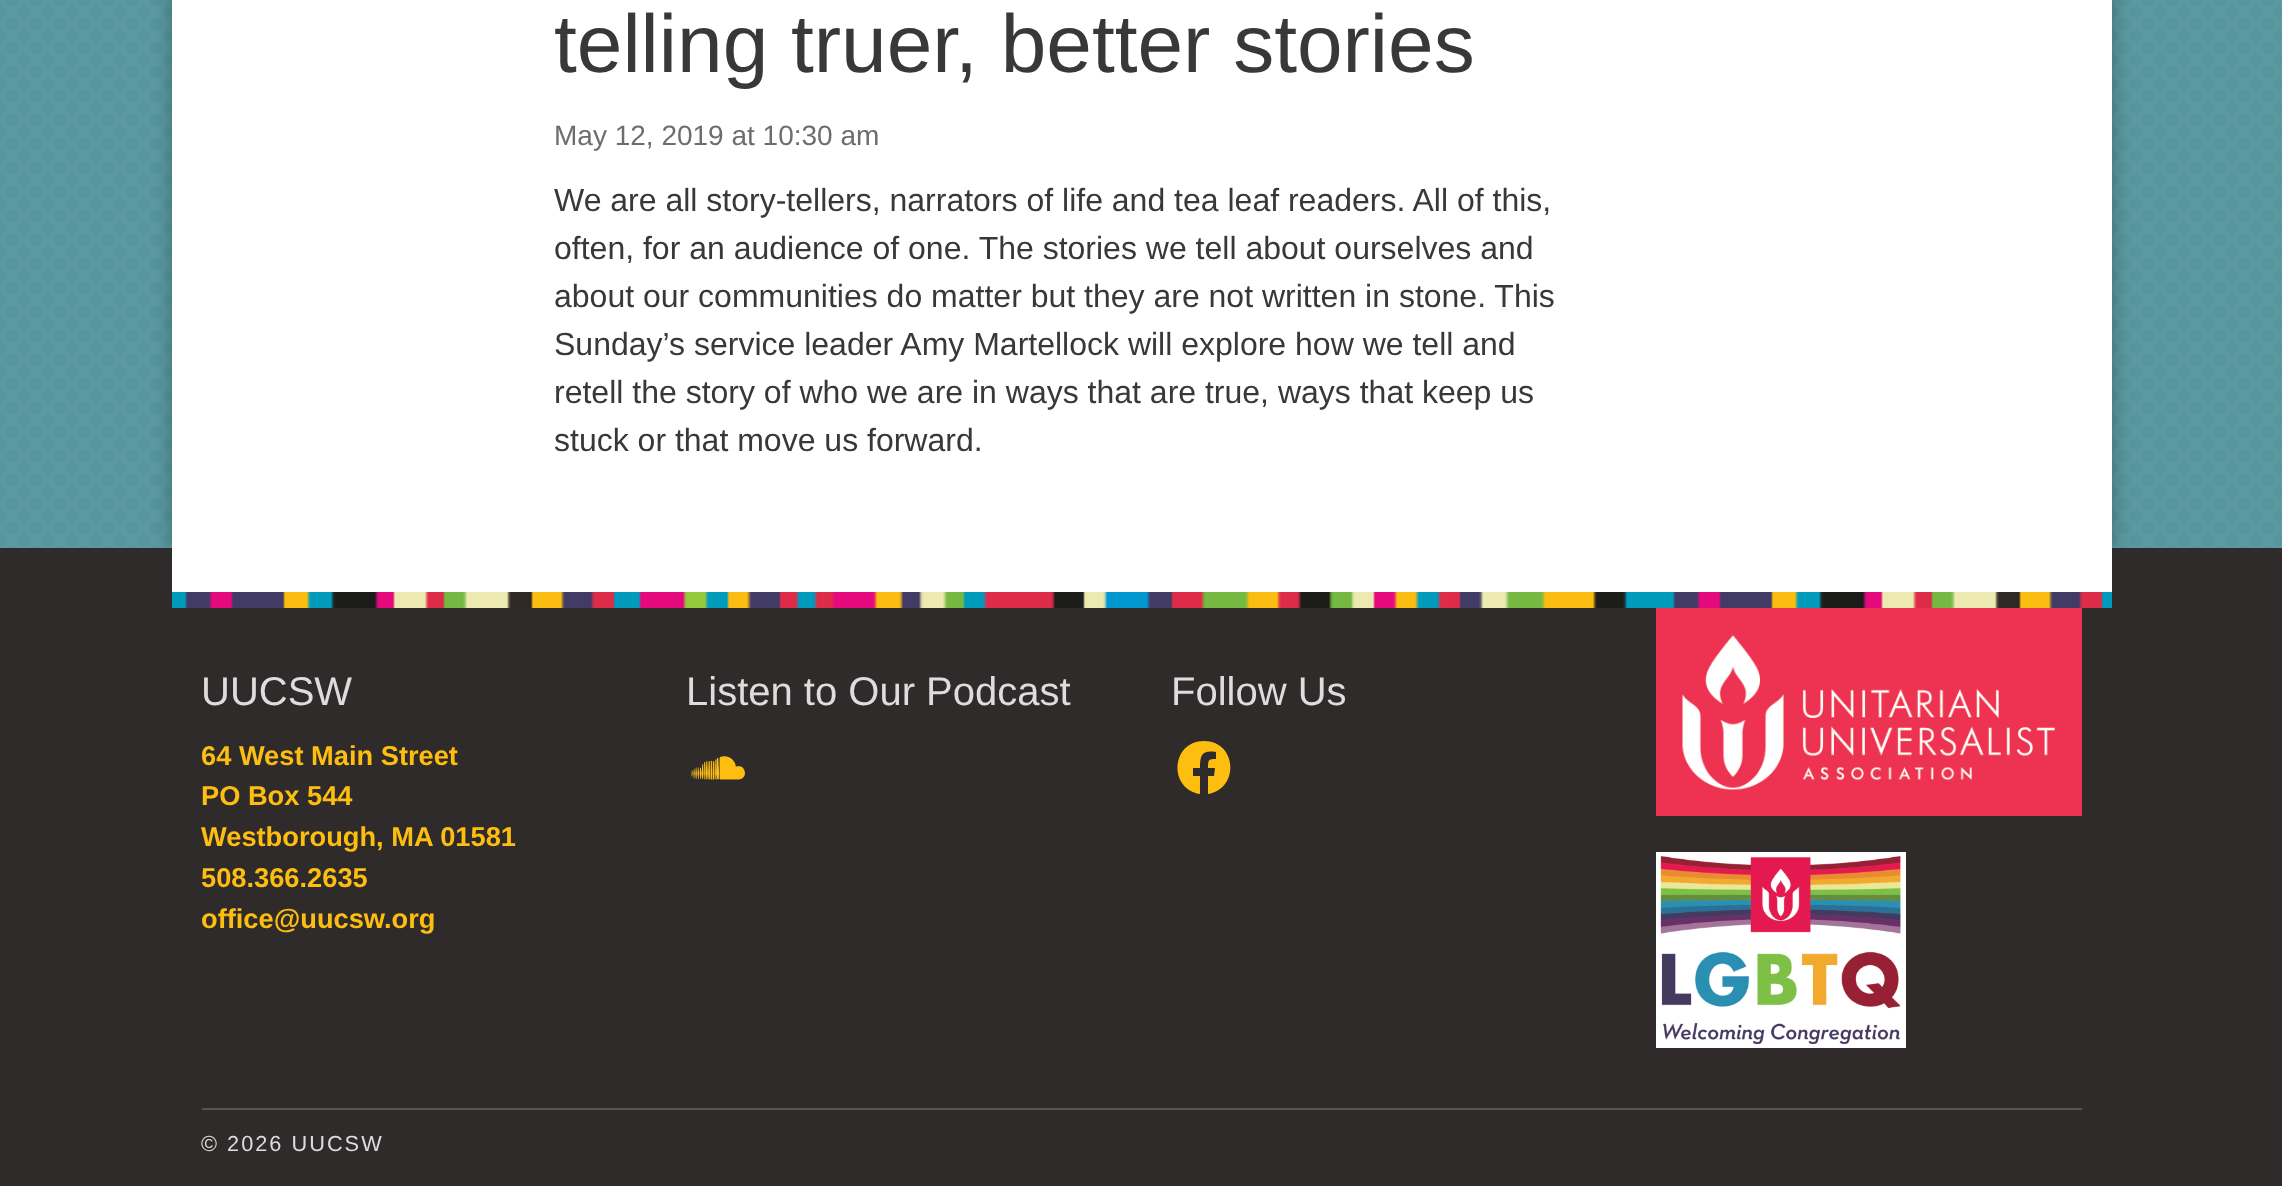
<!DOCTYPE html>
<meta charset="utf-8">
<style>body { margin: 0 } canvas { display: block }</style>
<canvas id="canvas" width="2282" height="1186"></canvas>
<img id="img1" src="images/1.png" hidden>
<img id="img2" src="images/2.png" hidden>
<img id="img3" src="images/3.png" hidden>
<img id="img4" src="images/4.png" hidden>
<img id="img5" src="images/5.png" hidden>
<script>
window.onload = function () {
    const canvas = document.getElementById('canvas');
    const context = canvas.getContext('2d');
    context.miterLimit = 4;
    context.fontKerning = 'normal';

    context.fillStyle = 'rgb(255, 255, 255)';
    context.fillRect(0, 0, 2282, 1186);
    context.drawImage(document.getElementById('img1'), 0, 0, 2282, 548);
    context.fillStyle = 'rgba(0, 0, 0, 0.3)';
    context.filter = 'blur(10px)';
    context.beginPath();
    context.rect(172, -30, 1940, 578);
    context.fill();
    context.filter = 'none';
    context.fillStyle = 'rgb(255, 255, 255)';
    context.fillRect(172, 0, 1940, 548);
    context.fillStyle = 'rgb(47, 43, 43)';
    context.fillRect(0, 548, 2282, 638);
    context.fillStyle = 'rgb(255, 255, 255)';
    context.fillRect(172, 548, 1940, 44);
    context.drawImage(document.getElementById('img2'), 172, 592, 1940, 16);
    context.drawImage(document.getElementById('img3'), 691, 756, 54, 24);
    context.fillStyle = 'rgb(254, 190, 16)';
    context.beginPath();
    context.moveTo(1204, 741);
    context.bezierCurveTo(1171, 741, 1168, 789, 1200, 794);
    context.lineTo(1200, 776);
    context.lineTo(1193, 776);
    context.lineTo(1193, 768);
    context.lineTo(1200, 768);
    context.bezierCurveTo(1200, 755, 1202, 750, 1216, 752);
    context.lineTo(1216, 759);
    context.bezierCurveTo(1208, 759, 1208, 760, 1208, 768);
    context.lineTo(1215, 768);
    context.lineTo(1214, 776);
    context.lineTo(1208, 776);
    context.lineTo(1208, 794);
    context.bezierCurveTo(1240, 789, 1237, 741, 1204, 741);
    context.closePath();
    context.fill();
    context.drawImage(document.getElementById('img4'), 1656, 608, 426, 208);
    context.drawImage(document.getElementById('img5'), 1656, 852, 250, 196);
    context.fillStyle = 'rgb(89, 85, 85)';
    context.fillRect(202, 1108, 1880, 2);
    context.font = '82px Liberation Sans';
    context.fillStyle = 'rgb(55, 56, 57)';
    context.fillText('telling truer, better stories', 554, 72);
    context.font = '28px Liberation Sans';
    context.fillStyle = 'rgb(108, 109, 111)';
    context.fillText('May 12, 2019 at 10:30 am', 554, 145);
    context.font = '32px Liberation Sans';
    context.fillStyle = 'rgb(55, 56, 57)';
    context.fillText('We are all story-tellers, narrators of life and tea leaf readers. All of this,', 554, 211);
    context.fillText('often, for an audience of one. The stories we tell about ourselves and', 554, 259);
    context.fillText('about our communities do matter but they are not written in stone. This', 554, 307);
    context.fillText('Sunday’s service leader Amy Martellock will explore how we tell and', 554, 355);
    context.fillText('retell the story of who we are in ways that are true, ways that keep us', 554, 403);
    context.fillText('stuck or that move us forward.', 554, 451);
    context.font = '40px Liberation Sans';
    context.fillStyle = 'rgb(221, 221, 221)';
    context.fillText('UUCSW', 201, 705);
    context.font = 'bold 27.25px Liberation Sans';
    context.fillStyle = 'rgb(254, 190, 16)';
    context.fillText('64 West Main Street', 201, 765);
    context.fillText('PO Box 544', 201, 805);
    context.fillText('Westborough, MA 01581', 201, 846);
    context.fillText('508.366.2635', 201, 887);
    context.fillText('office@uucsw.org', 201, 928);
    context.font = '40px Liberation Sans';
    context.fillStyle = 'rgb(221, 221, 221)';
    context.fillText('Listen to Our Podcast', 686, 705);
    context.fillText('Follow Us', 1171, 705);
    context.letterSpacing = '2px';
    context.font = '21.75px Liberation Sans';
    context.fillText('© 2026 UUCSW', 201, 1151);
};
</script>
